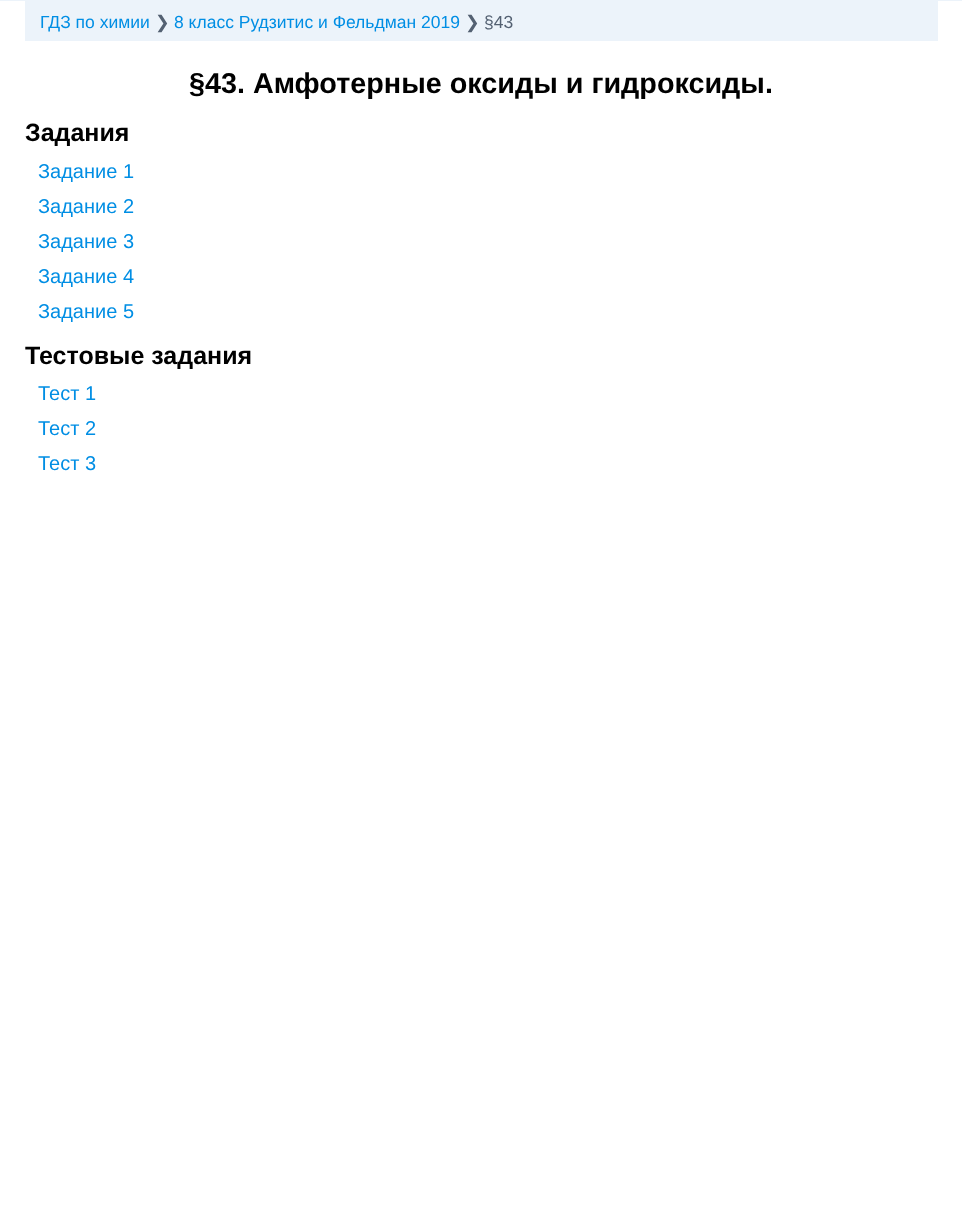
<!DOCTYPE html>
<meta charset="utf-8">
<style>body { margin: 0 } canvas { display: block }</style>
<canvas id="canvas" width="962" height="1205"></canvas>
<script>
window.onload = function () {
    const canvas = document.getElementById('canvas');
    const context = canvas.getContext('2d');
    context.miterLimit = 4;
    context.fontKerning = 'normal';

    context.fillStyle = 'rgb(255, 255, 255)';
    context.fillRect(0, 0, 962, 1205);
    context.fillStyle = 'rgb(236, 243, 250)';
    context.fillRect(0, 0, 962, 1);
    context.fillRect(25, 1, 913, 40);
    context.font = '17.5px Liberation Sans';
    context.fillStyle = 'rgb(0, 142, 228)';
    context.fillText('ГДЗ по химии', 40, 28);
    context.font = '17.5px DejaVu Sans';
    context.fillStyle = 'rgb(84, 97, 114)';
    context.fillText('❯', 155, 28);
    context.font = '17.5px Liberation Sans';
    context.fillStyle = 'rgb(0, 142, 228)';
    context.fillText('8 класс Рудзитис и Фельдман 2019', 174, 28);
    context.font = '17.5px DejaVu Sans';
    context.fillStyle = 'rgb(84, 97, 114)';
    context.fillText('❯', 465, 28);
    context.font = '17.5px Liberation Sans';
    context.fillText('§43', 484, 28);
    context.font = 'bold 28.75px Liberation Sans';
    context.fillStyle = 'rgb(0, 0, 0)';
    context.fillText('§43. Амфотерные оксиды и гидроксиды.', 189, 93);
    context.font = 'bold 25px Liberation Sans';
    context.fillText('Задания', 25, 141);
    context.font = '20px Liberation Sans';
    context.fillStyle = 'rgb(0, 142, 228)';
    context.fillText('Задание 1', 38, 178);
    context.fillText('Задание 2', 38, 213);
    context.fillText('Задание 3', 38, 248);
    context.fillText('Задание 4', 38, 283);
    context.fillText('Задание 5', 38, 318);
    context.font = 'bold 25px Liberation Sans';
    context.fillStyle = 'rgb(0, 0, 0)';
    context.fillText('Тестовые задания', 25, 364);
    context.font = '20px Liberation Sans';
    context.fillStyle = 'rgb(0, 142, 228)';
    context.fillText('Тест 1', 38, 400);
    context.fillText('Тест 2', 38, 435);
    context.fillText('Тест 3', 38, 470);
};
</script>
